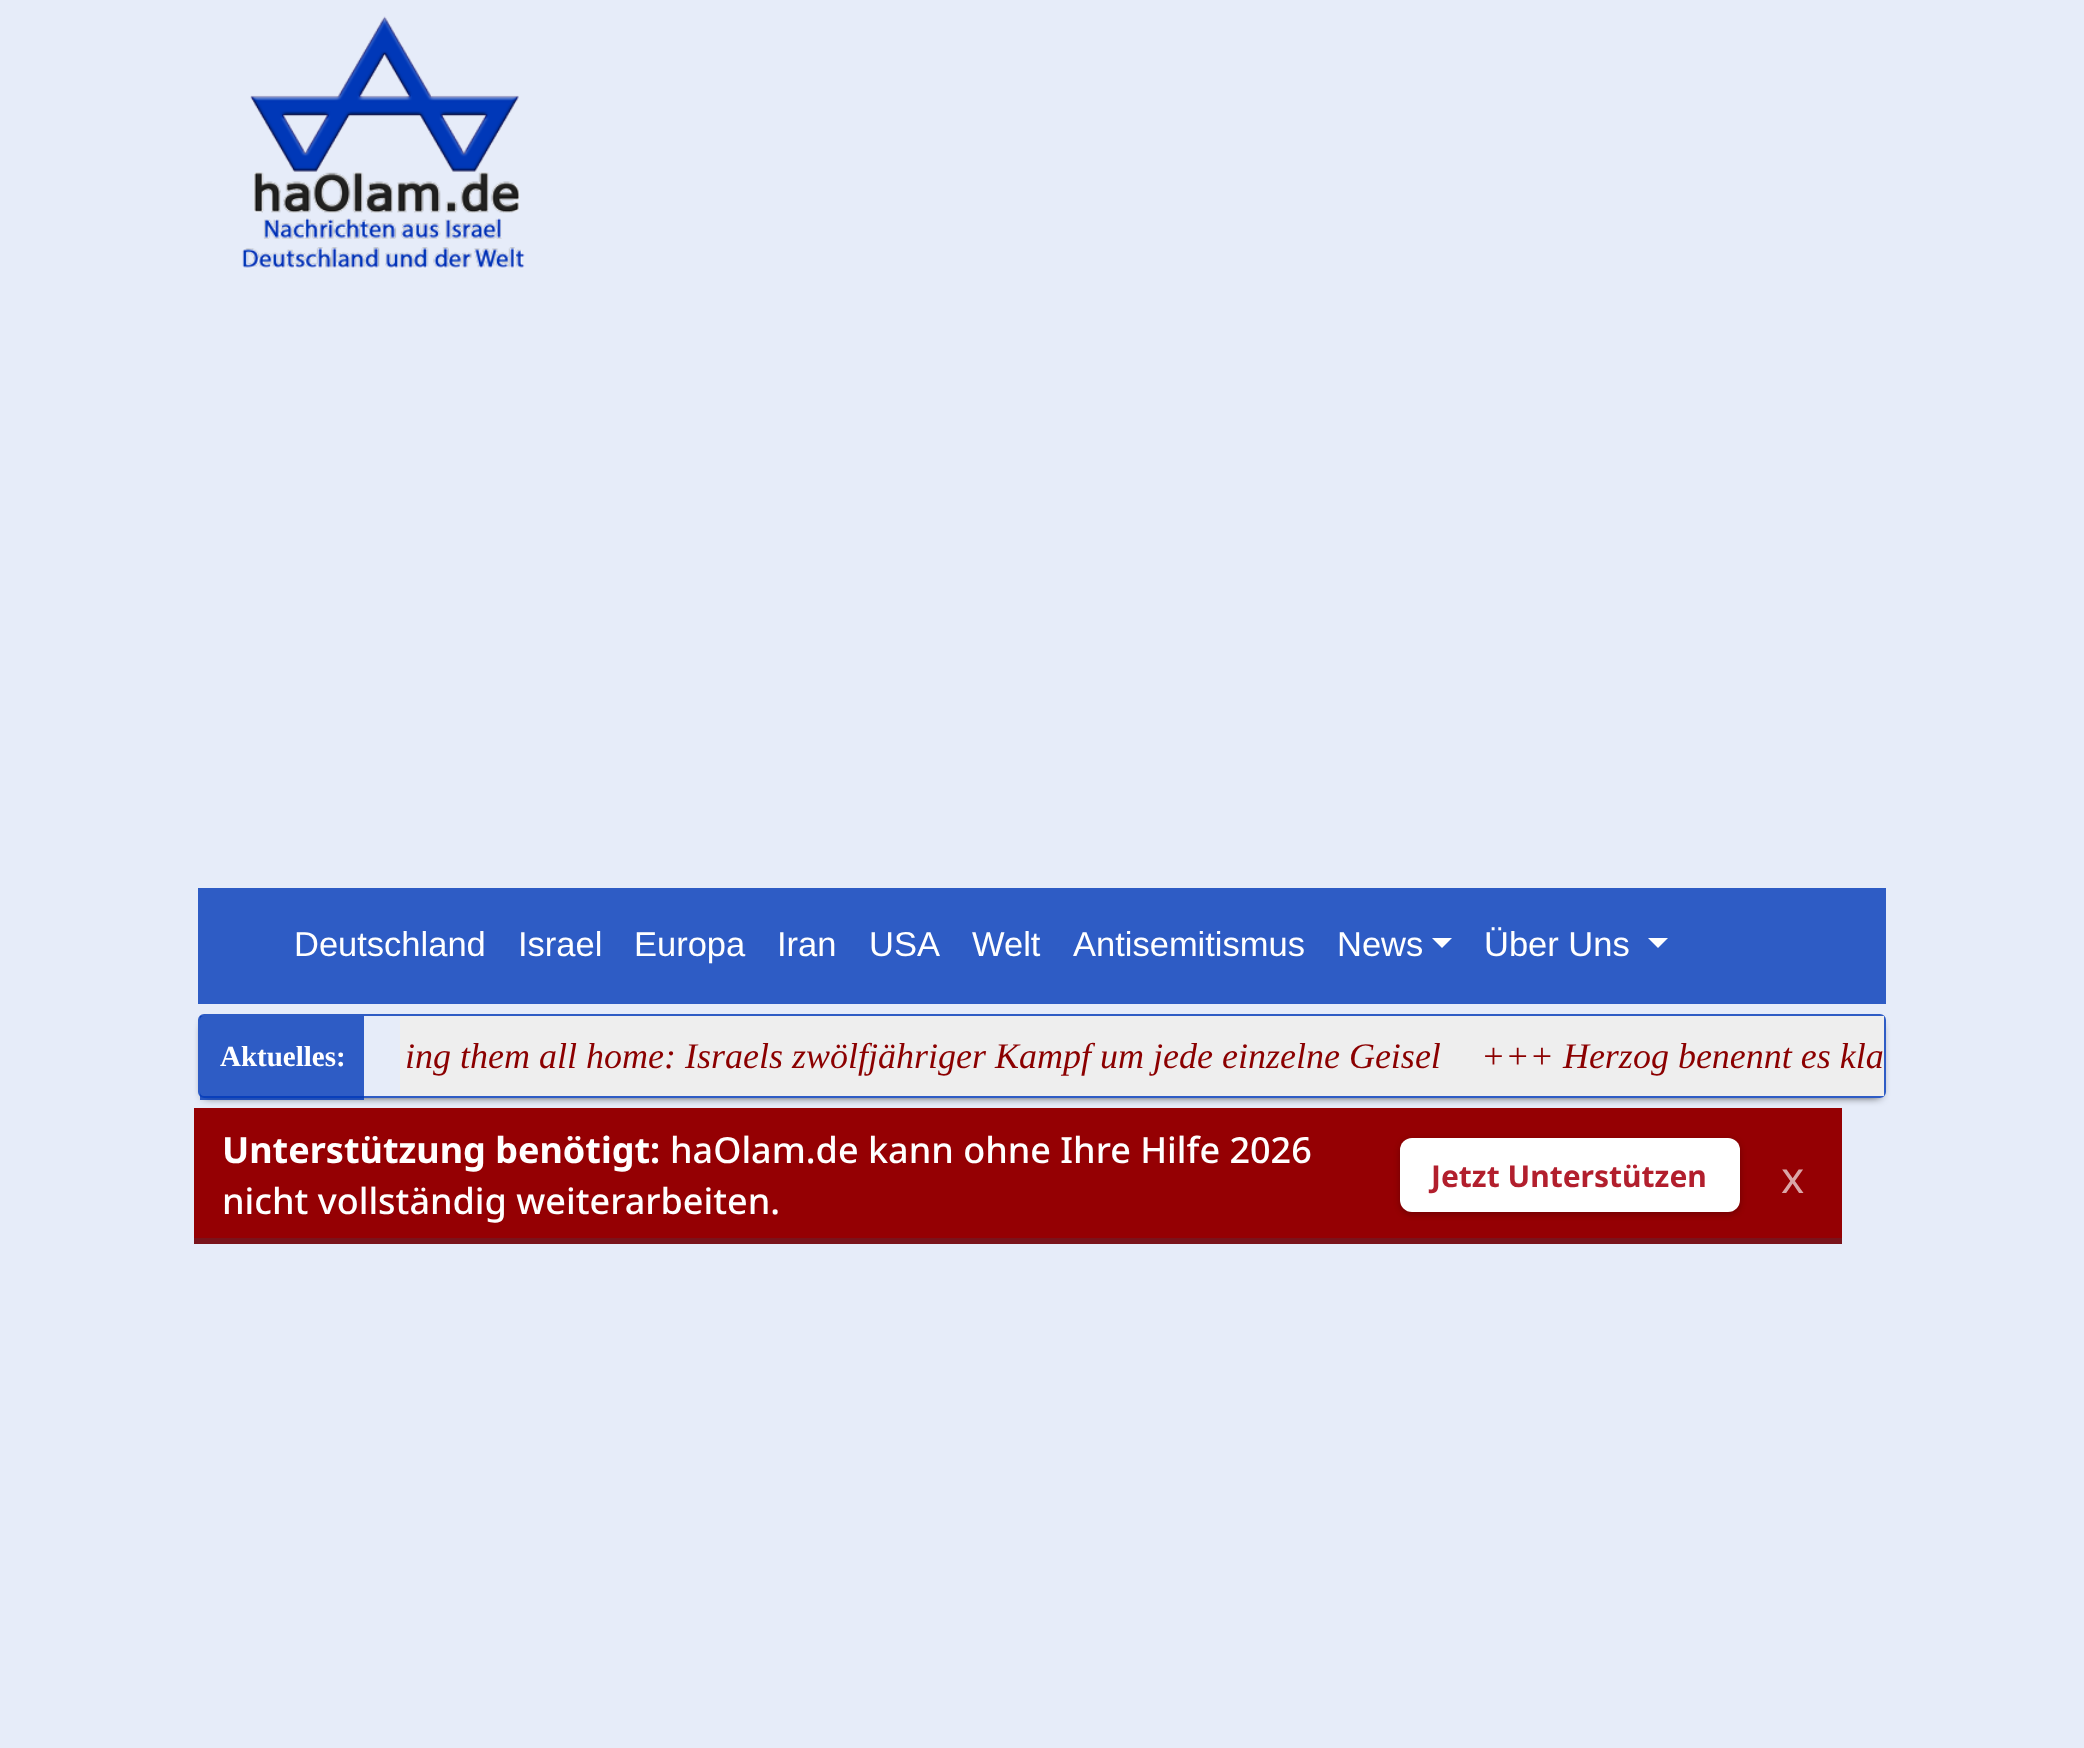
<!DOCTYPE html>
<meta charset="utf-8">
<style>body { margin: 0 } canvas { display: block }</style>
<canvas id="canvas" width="2084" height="1748"></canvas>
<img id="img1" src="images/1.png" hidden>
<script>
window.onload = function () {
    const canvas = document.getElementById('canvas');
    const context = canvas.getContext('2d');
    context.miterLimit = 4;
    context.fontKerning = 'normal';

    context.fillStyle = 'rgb(230, 236, 249)';
    context.fillRect(0, 0, 2084, 1748);
    context.drawImage(document.getElementById('img1'), 242, 16, 283, 253);
    context.fillStyle = 'rgb(46, 92, 197)';
    context.fillRect(198, 888, 1688, 116);
    context.fillStyle = 'rgb(255, 255, 255)';
    context.beginPath();
    context.moveTo(1432, 938);
    context.lineTo(1452, 938);
    context.lineTo(1442, 948);
    context.closePath();
    context.fill();
    context.beginPath();
    context.moveTo(1648, 938);
    context.lineTo(1668, 938);
    context.lineTo(1658, 948);
    context.closePath();
    context.fill();
    context.save();
    context.beginPath();
    context.moveTo(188, 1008);
    context.lineTo(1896, 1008);
    context.lineTo(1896, 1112);
    context.lineTo(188, 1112);
    context.closePath();
    context.moveTo(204, 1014);
    context.lineTo(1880, 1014);
    context.bezierCurveTo(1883.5, 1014, 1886, 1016.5, 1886, 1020);
    context.lineTo(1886, 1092);
    context.bezierCurveTo(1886, 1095.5, 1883.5, 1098, 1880, 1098);
    context.lineTo(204, 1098);
    context.bezierCurveTo(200.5, 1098, 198, 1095.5, 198, 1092);
    context.lineTo(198, 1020);
    context.bezierCurveTo(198, 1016.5, 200.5, 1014, 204, 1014);
    context.closePath();
    context.clip('evenodd');
    context.fillStyle = 'rgb(0, 0, 0)';
    context.filter = 'blur(5px)';
    context.beginPath();
    context.rect(204, 1024, 1676, 72);
    context.fill();
    context.filter = 'none';
    context.restore();
    context.beginPath();
    context.roundRect(199, 1015, 1686, 82, 5);
    context.strokeStyle = 'rgba(0, 56, 184, 0.8)';
    context.lineWidth = 2;
    context.stroke();
    context.fillStyle = 'rgba(0, 56, 184, 0.8)';
    context.fillRect(200, 1016, 164, 84);
    context.fillStyle = 'rgb(238, 238, 238)';
    context.fillRect(400, 1016, 1484, 80);
    context.fillStyle = 'rgb(149, 0, 3)';
    context.fillRect(194, 1108, 1648, 130);
    context.fillStyle = 'rgb(122, 19, 27)';
    context.fillRect(194, 1238, 1648, 6);
    context.fillStyle = 'rgba(0, 0, 0, 0.25)';
    context.filter = 'blur(3px)';
    context.beginPath();
    context.roundRect(1400, 1140, 340, 74, 12);
    context.fill();
    context.filter = 'none';
    context.fillStyle = 'rgb(255, 255, 255)';
    context.beginPath();
    context.roundRect(1400, 1138, 340, 74, 12);
    context.fill();
    context.font = '34.5px Liberation Sans';
    context.fillText('Deutschland', 294, 956);
    context.fillText('Israel', 518, 956);
    context.fillText('Europa', 634, 956);
    context.fillText('Iran', 777, 956);
    context.fillText('USA', 869, 956);
    context.fillText('Welt', 972, 956);
    context.fillText('Antisemitismus', 1073, 956);
    context.fillText('News', 1337, 956);
    context.fillText('Über Uns', 1484, 956);
    context.font = 'bold 29px Liberation Serif';
    context.fillText('Aktuelles:', 220, 1066);
    context.font = 'italic 36px Liberation Serif';
    context.fillStyle = 'rgb(139, 0, 0)';
    context.fillText('ing them all home: Israels zwölfjähriger Kampf um jede einzelne Geisel', 405, 1068);
    context.fillText('+++ Herzog benennt es kla', 1481, 1068);
    context.font = 'bold 36px Noto Sans';
    context.fillStyle = 'rgb(255, 255, 255)';
    context.fillText('Unterstützung benötigt:', 222, 1163);
    context.font = '500 36px Noto Sans';
    context.fillText('haOlam.de kann ohne Ihre Hilfe 2026', 670, 1163);
    context.fillText('nicht vollständig weiterarbeiten.', 222, 1214);
    context.font = 'bold 30px Noto Sans';
    context.fillStyle = 'rgb(178, 31, 45)';
    context.fillText('Jetzt Unterstützen', 1431, 1187);
    context.font = '44px Noto Sans';
    context.fillStyle = 'rgb(218, 166, 167)';
    context.fillText('x', 1781, 1193);
};
</script>
